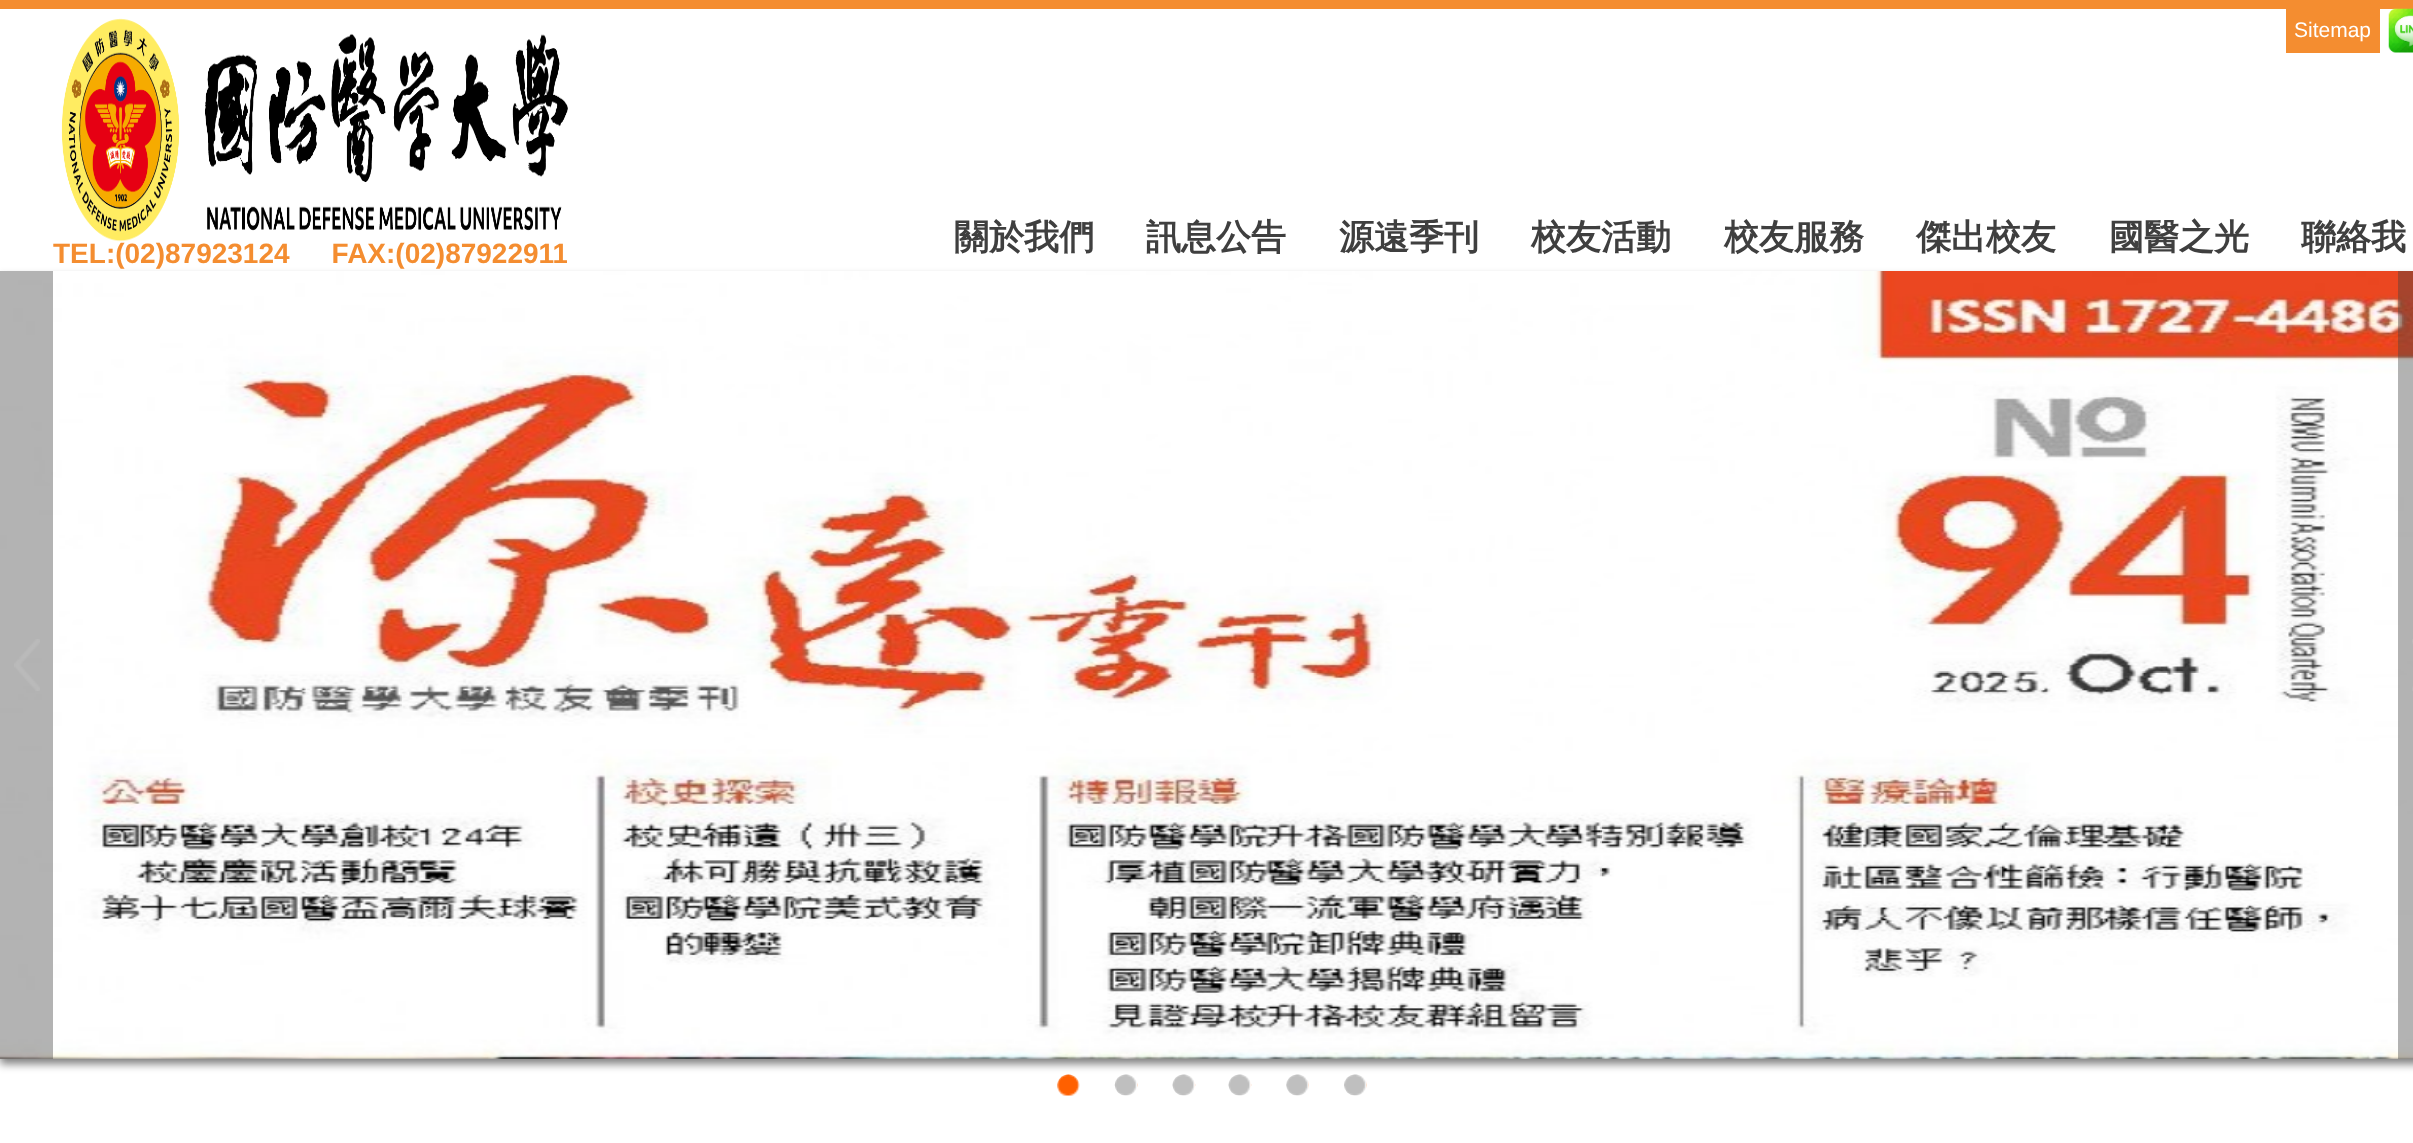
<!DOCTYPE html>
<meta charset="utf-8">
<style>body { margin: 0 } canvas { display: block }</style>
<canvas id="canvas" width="2413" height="1143"></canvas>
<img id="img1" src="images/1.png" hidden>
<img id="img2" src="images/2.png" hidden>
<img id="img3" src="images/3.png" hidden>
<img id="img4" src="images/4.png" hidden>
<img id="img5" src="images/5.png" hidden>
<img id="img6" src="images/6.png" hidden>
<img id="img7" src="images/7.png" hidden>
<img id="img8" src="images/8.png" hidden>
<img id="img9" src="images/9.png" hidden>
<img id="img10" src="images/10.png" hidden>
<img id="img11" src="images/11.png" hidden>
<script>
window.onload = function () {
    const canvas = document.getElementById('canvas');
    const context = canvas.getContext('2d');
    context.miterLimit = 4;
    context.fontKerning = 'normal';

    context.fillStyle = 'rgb(255, 255, 255)';
    context.fillRect(0, 0, 2413, 1143);
    context.fillStyle = 'rgb(244, 141, 48)';
    context.fillRect(0, 0, 2413, 9);
    context.drawImage(document.getElementById('img1'), 61, 18, 507, 224);
    context.fillRect(2286, 9, 94, 44);
    context.drawImage(document.getElementById('img2'), 2388, 8, 25, 45);
    context.fillStyle = 'rgba(0, 0, 0, 0.5)';
    context.filter = 'blur(4.5px)';
    context.beginPath();
    context.rect(0, 277, 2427, 787);
    context.fill();
    context.filter = 'none';
    context.drawImage(document.getElementById('img3'), 0, 271, 2413, 788);
    context.fillStyle = 'rgba(64, 64, 64, 0.4)';
    context.fillRect(0, 271, 53, 788);
    context.drawImage(document.getElementById('img4'), 14, 639, 26, 52);
    context.fillRect(2398, 271, 15, 788);
    context.drawImage(document.getElementById('img5'), 2412, 639, 1, 52);
    context.drawImage(document.getElementById('img6'), 1057, 1074, 23, 22);
    context.drawImage(document.getElementById('img7'), 1114, 1074, 24, 22);
    context.drawImage(document.getElementById('img8'), 1172, 1074, 24, 22);
    context.drawImage(document.getElementById('img9'), 1228, 1074, 24, 22);
    context.drawImage(document.getElementById('img10'), 1286, 1074, 23, 22);
    context.drawImage(document.getElementById('img11'), 1344, 1074, 23, 22);
    context.font = '21px Liberation Sans';
    context.fillStyle = 'rgb(255, 255, 255)';
    context.fillText('Sitemap', 2294, 37);
    context.save();
    context.beginPath();
    context.rect(53, 228, 514, 43);
    context.clip();
    context.font = 'bold 28px Liberation Sans';
    context.fillStyle = 'rgb(244, 141, 48)';
    context.fillText('TEL:(02)87923124  FAX:(02)87922911', 53, 263);
    context.restore();
    context.font = 'bold 35px WenQuanYi Zen Hei';
    context.fillStyle = 'rgb(63, 63, 63)';
    context.fillText('關於我們', 954, 249);
    context.fillText('訊息公告', 1146, 249);
    context.fillText('源遠季刊', 1339, 249);
    context.fillText('校友活動', 1531, 249);
    context.fillText('校友服務', 1724, 249);
    context.fillText('傑出校友', 1916, 249);
    context.fillText('國醫之光', 2109, 249);
    context.fillText('聯絡我', 2301, 249);
};
</script>
